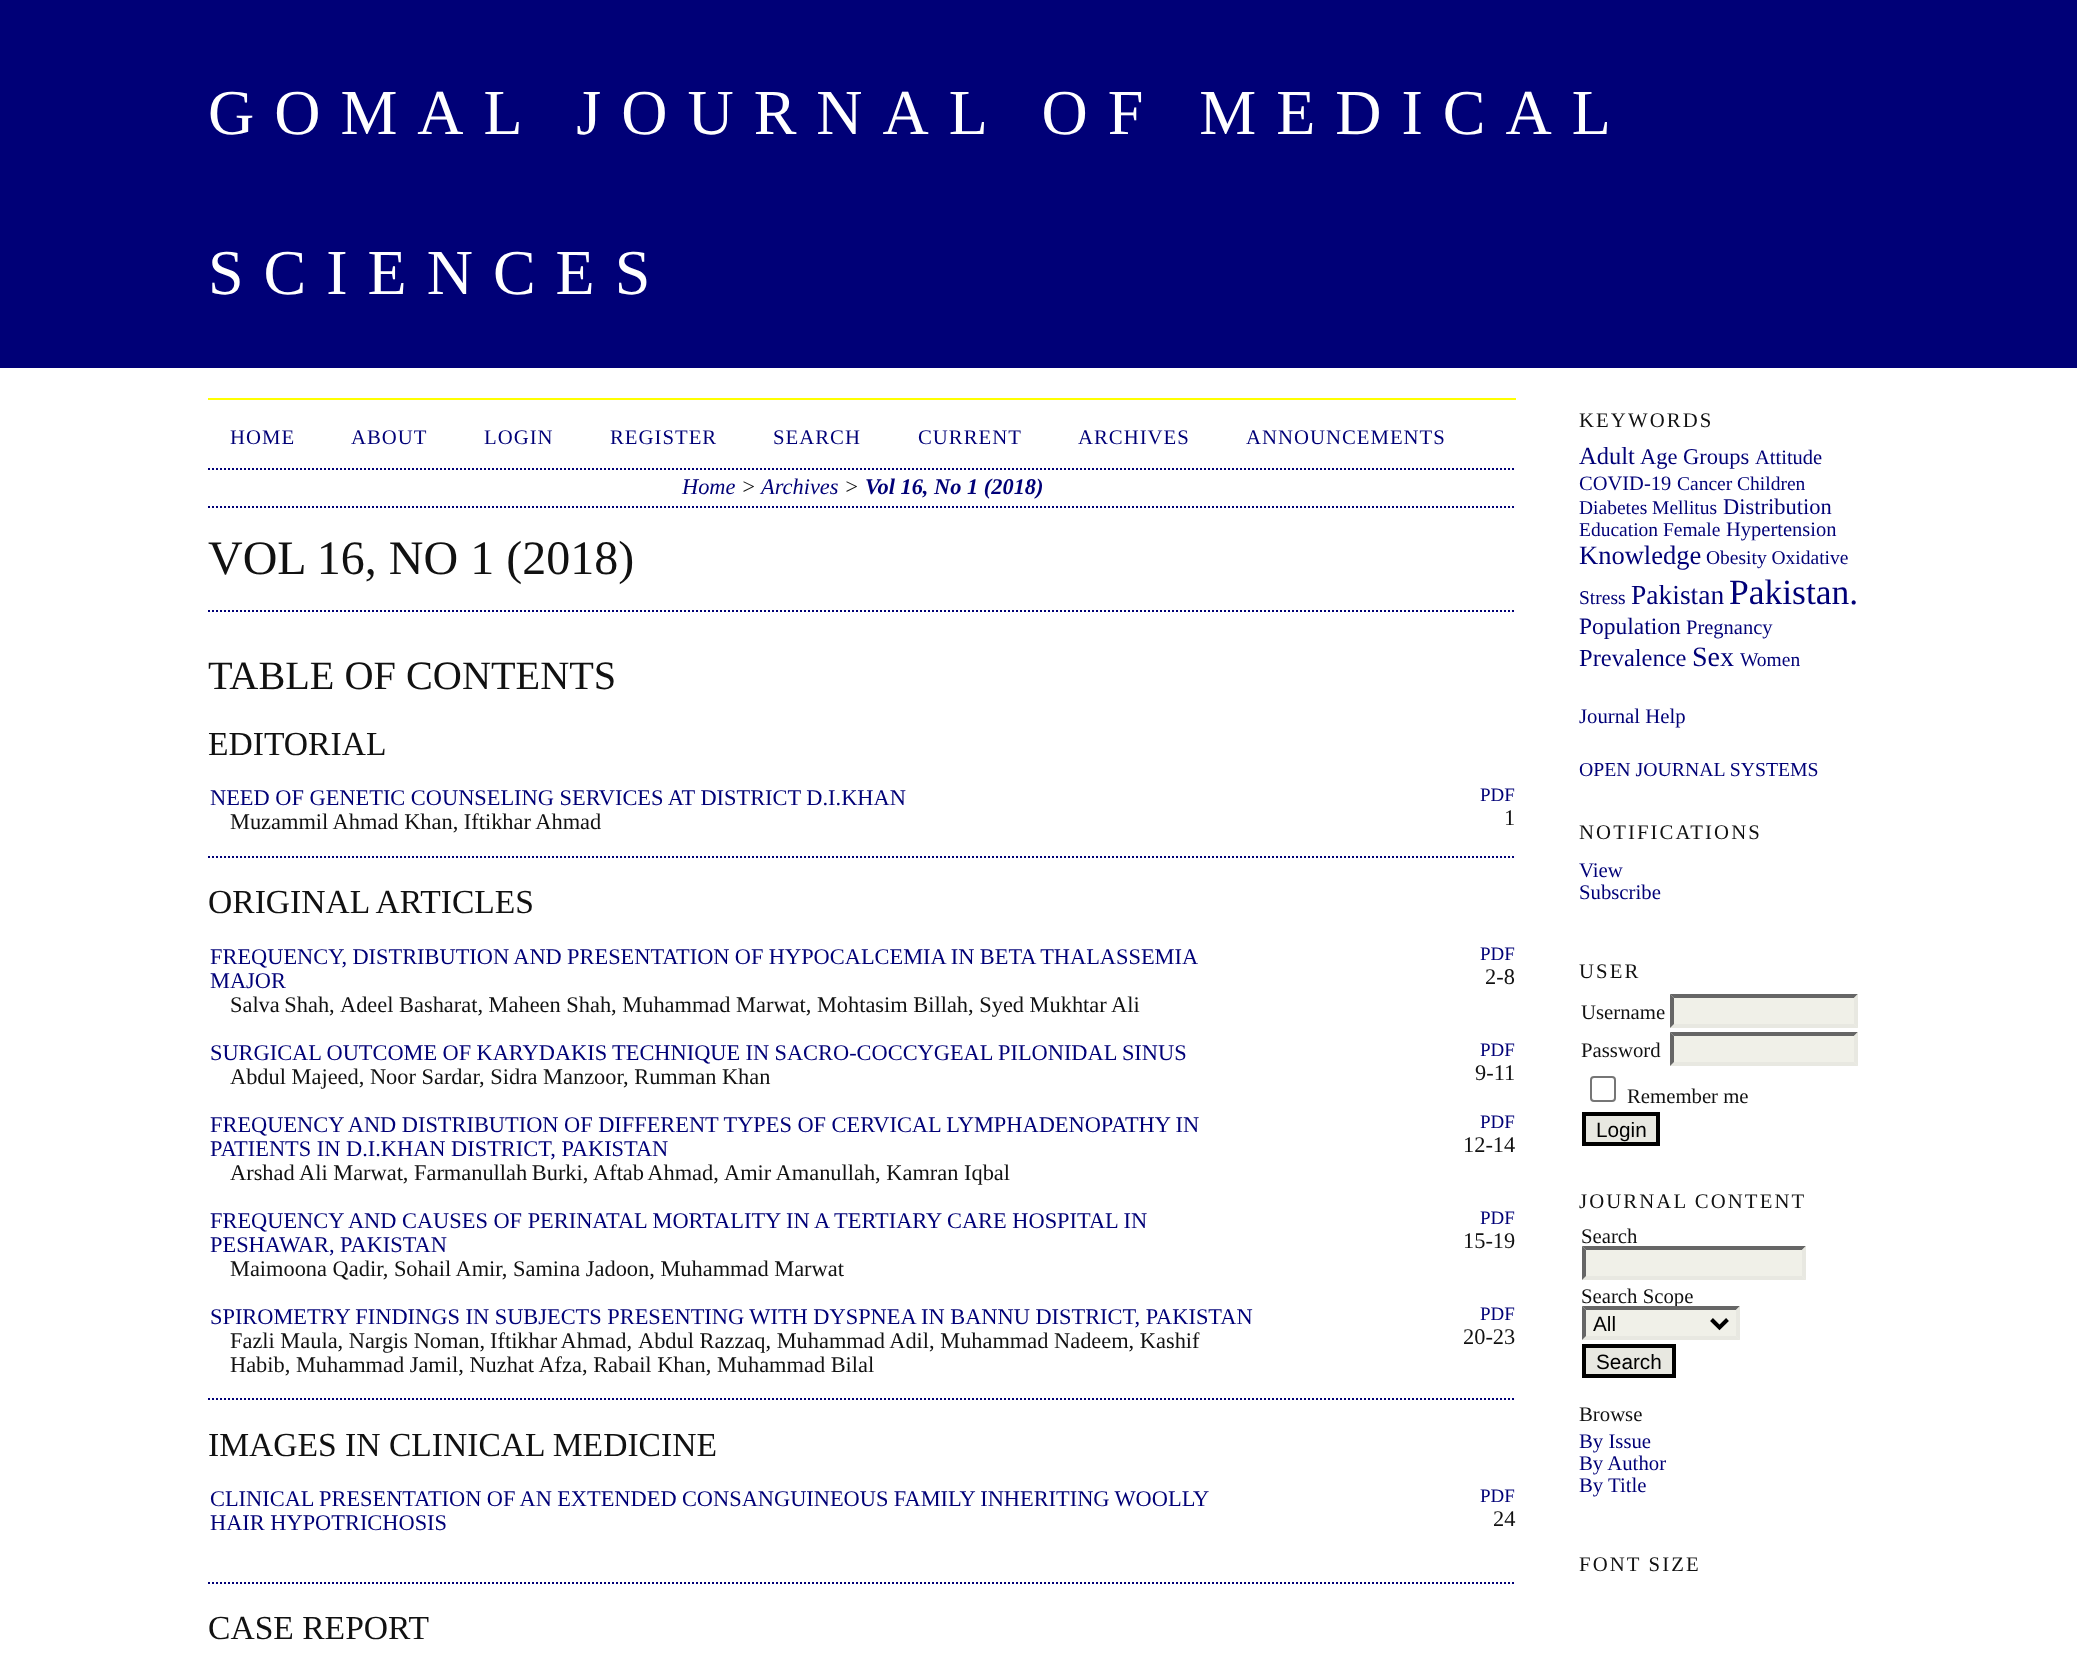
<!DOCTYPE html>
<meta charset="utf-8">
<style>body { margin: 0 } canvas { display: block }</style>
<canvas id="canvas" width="2077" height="1659"></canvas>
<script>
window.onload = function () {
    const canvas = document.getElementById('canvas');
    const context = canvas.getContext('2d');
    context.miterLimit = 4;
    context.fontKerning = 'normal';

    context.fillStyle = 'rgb(255, 255, 255)';
    context.fillRect(0, 0, 2077, 1659);
    context.fillStyle = 'rgb(0, 0, 119)';
    context.fillRect(0, 0, 2077, 368);
    context.fillStyle = 'rgb(255, 255, 0)';
    context.fillRect(208, 398, 1308, 2);
    context.beginPath();
    context.moveTo(208, 469);
    context.lineTo(1516, 469);
    context.strokeStyle = 'rgb(0, 0, 119)';
    context.lineWidth = 2;
    context.setLineDash([2, 2]);
    context.stroke();
    context.beginPath();
    context.moveTo(208, 507);
    context.lineTo(1516, 507);
    context.stroke();
    context.beginPath();
    context.moveTo(208, 611);
    context.lineTo(1516, 611);
    context.stroke();
    context.beginPath();
    context.moveTo(208, 857);
    context.lineTo(1516, 857);
    context.stroke();
    context.beginPath();
    context.moveTo(208, 1399);
    context.lineTo(1516, 1399);
    context.stroke();
    context.beginPath();
    context.moveTo(208, 1583);
    context.lineTo(1516, 1583);
    context.stroke();
    context.fillStyle = 'rgb(240, 240, 232)';
    context.fillRect(1670, 994, 188, 34);
    context.fillStyle = 'rgb(102, 102, 102)';
    context.beginPath();
    context.moveTo(1670, 994);
    context.lineTo(1858, 994);
    context.lineTo(1854, 998);
    context.lineTo(1674, 998);
    context.closePath();
    context.fill();
    context.fillStyle = 'rgb(232, 232, 225)';
    context.beginPath();
    context.moveTo(1858, 994);
    context.lineTo(1858, 1028);
    context.lineTo(1854, 1024);
    context.lineTo(1854, 998);
    context.closePath();
    context.fill();
    context.beginPath();
    context.moveTo(1858, 1028);
    context.lineTo(1670, 1028);
    context.lineTo(1674, 1024);
    context.lineTo(1854, 1024);
    context.closePath();
    context.fill();
    context.fillStyle = 'rgb(102, 102, 102)';
    context.beginPath();
    context.moveTo(1670, 1028);
    context.lineTo(1670, 994);
    context.lineTo(1674, 998);
    context.lineTo(1674, 1024);
    context.closePath();
    context.fill();
    context.fillStyle = 'rgb(240, 240, 232)';
    context.fillRect(1670, 1032, 188, 34);
    context.fillStyle = 'rgb(102, 102, 102)';
    context.beginPath();
    context.moveTo(1670, 1032);
    context.lineTo(1858, 1032);
    context.lineTo(1854, 1036);
    context.lineTo(1674, 1036);
    context.closePath();
    context.fill();
    context.fillStyle = 'rgb(232, 232, 225)';
    context.beginPath();
    context.moveTo(1858, 1032);
    context.lineTo(1858, 1066);
    context.lineTo(1854, 1062);
    context.lineTo(1854, 1036);
    context.closePath();
    context.fill();
    context.beginPath();
    context.moveTo(1858, 1066);
    context.lineTo(1670, 1066);
    context.lineTo(1674, 1062);
    context.lineTo(1854, 1062);
    context.closePath();
    context.fill();
    context.fillStyle = 'rgb(102, 102, 102)';
    context.beginPath();
    context.moveTo(1670, 1066);
    context.lineTo(1670, 1032);
    context.lineTo(1674, 1036);
    context.lineTo(1674, 1062);
    context.closePath();
    context.fill();
    context.beginPath();
    context.roundRect(1591, 1077, 24, 24, 3);
    context.strokeStyle = 'rgb(118, 118, 118)';
    context.setLineDash([]);
    context.stroke();
    context.fillStyle = 'rgb(232, 232, 225)';
    context.beginPath();
    context.rect(1584, 1114, 74, 30);
    context.fill();
    context.strokeStyle = 'rgb(0, 0, 0)';
    context.lineWidth = 4;
    context.stroke();
    context.fillStyle = 'rgb(240, 240, 232)';
    context.fillRect(1582, 1246, 224, 34);
    context.fillStyle = 'rgb(102, 102, 102)';
    context.beginPath();
    context.moveTo(1582, 1246);
    context.lineTo(1806, 1246);
    context.lineTo(1802, 1250);
    context.lineTo(1586, 1250);
    context.closePath();
    context.fill();
    context.fillStyle = 'rgb(232, 232, 225)';
    context.beginPath();
    context.moveTo(1806, 1246);
    context.lineTo(1806, 1280);
    context.lineTo(1802, 1276);
    context.lineTo(1802, 1250);
    context.closePath();
    context.fill();
    context.beginPath();
    context.moveTo(1806, 1280);
    context.lineTo(1582, 1280);
    context.lineTo(1586, 1276);
    context.lineTo(1802, 1276);
    context.closePath();
    context.fill();
    context.fillStyle = 'rgb(102, 102, 102)';
    context.beginPath();
    context.moveTo(1582, 1280);
    context.lineTo(1582, 1246);
    context.lineTo(1586, 1250);
    context.lineTo(1586, 1276);
    context.closePath();
    context.fill();
    context.fillStyle = 'rgb(232, 232, 225)';
    context.beginPath();
    context.rect(1584, 1346, 90, 30);
    context.fill();
    context.stroke();
    context.letterSpacing = '20px';
    context.font = '64px Liberation Serif';
    context.fillStyle = 'rgb(255, 255, 255)';
    context.fillText('GOMAL JOURNAL OF MEDICAL', 208, 134);
    context.fillText('SCIENCES', 208, 294);
    context.letterSpacing = '1px';
    context.font = '20.75px Liberation Serif';
    context.fillStyle = 'rgb(0, 0, 119)';
    context.fillText('HOME', 230, 444);
    context.fillText('ABOUT', 351, 444);
    context.fillText('LOGIN', 484, 444);
    context.fillText('REGISTER', 610, 444);
    context.fillText('SEARCH', 773, 444);
    context.fillText('CURRENT', 918, 444);
    context.fillText('ARCHIVES', 1078, 444);
    context.fillText('ANNOUNCEMENTS', 1246, 444);
    context.letterSpacing = '0px';
    context.font = 'italic 22.4px Liberation Serif';
    context.fillText('Home', 682, 494);
    context.fillStyle = 'rgb(17, 17, 17)';
    context.fillText('>', 741, 494);
    context.fillStyle = 'rgb(0, 0, 119)';
    context.fillText('Archives', 761, 494);
    context.fillStyle = 'rgb(17, 17, 17)';
    context.fillText('>', 844, 494);
    context.font = 'italic bold 22.4px Liberation Serif';
    context.fillStyle = 'rgb(0, 0, 119)';
    context.fillText('Vol 16, No 1 (2018)', 865, 494);
    context.font = '48px Liberation Serif';
    context.fillStyle = 'rgb(17, 17, 17)';
    context.fillText('VOL 16, NO 1 (2018)', 208, 574);
    context.font = '40.25px Liberation Serif';
    context.fillText('TABLE OF CONTENTS', 208, 689);
    context.font = '33.6px Liberation Serif';
    context.fillText('EDITORIAL', 208, 755);
    context.font = '22.4px Liberation Serif';
    context.fillStyle = 'rgb(0, 0, 119)';
    context.fillText('NEED OF GENETIC COUNSELING SERVICES AT DISTRICT D.I.KHAN', 210, 805);
    context.fillStyle = 'rgb(17, 17, 17)';
    context.fillText('Muzammil Ahmad Khan, Iftikhar Ahmad', 230, 829);
    context.font = '19px Liberation Serif';
    context.fillStyle = 'rgb(0, 0, 119)';
    context.fillText('PDF', 1480, 801);
    context.font = '22.4px Liberation Serif';
    context.fillStyle = 'rgb(17, 17, 17)';
    context.fillText('1', 1504, 825);
    context.font = '33.6px Liberation Serif';
    context.fillText('ORIGINAL ARTICLES', 208, 913);
    context.wordSpacing = '-0.25px';
    context.font = '22.4px Liberation Serif';
    context.fillStyle = 'rgb(0, 0, 119)';
    context.fillText('FREQUENCY, DISTRIBUTION AND PRESENTATION OF HYPOCALCEMIA IN BETA THALASSEMIA', 210, 964);
    context.wordSpacing = '0px';
    context.fillText('MAJOR', 210, 988);
    context.wordSpacing = '-1px';
    context.fillStyle = 'rgb(17, 17, 17)';
    context.fillText('Salva Shah,', 230, 1012);
    context.wordSpacing = '0px';
    context.fillText('Adeel Basharat, Maheen Shah, Muhammad Marwat, Mohtasim Billah, Syed Mukhtar Ali', 340, 1012);
    context.font = '19px Liberation Serif';
    context.fillStyle = 'rgb(0, 0, 119)';
    context.fillText('PDF', 1480, 960);
    context.font = '22.4px Liberation Serif';
    context.fillStyle = 'rgb(17, 17, 17)';
    context.fillText('2-8', 1485, 984);
    context.wordSpacing = '-0.25px';
    context.fillStyle = 'rgb(0, 0, 119)';
    context.fillText('SURGICAL OUTCOME OF KARYDAKIS TECHNIQUE IN SACRO-COCCYGEAL PILONIDAL SINUS', 210, 1060);
    context.wordSpacing = '0px';
    context.fillStyle = 'rgb(17, 17, 17)';
    context.fillText('Abdul Majeed, Noor Sardar, Sidra Manzoor, Rumman Khan', 230, 1084);
    context.font = '19px Liberation Serif';
    context.fillStyle = 'rgb(0, 0, 119)';
    context.fillText('PDF', 1480, 1056);
    context.font = '22.4px Liberation Serif';
    context.fillStyle = 'rgb(17, 17, 17)';
    context.fillText('9-11', 1475, 1080);
    context.wordSpacing = '-0.1px';
    context.fillStyle = 'rgb(0, 0, 119)';
    context.fillText('FREQUENCY AND DISTRIBUTION OF DIFFERENT TYPES OF CERVICAL LYMPHADENOPATHY IN', 210, 1132);
    context.wordSpacing = '0px';
    context.fillText('PATIENTS IN D.I.KHAN DISTRICT, PAKISTAN', 210, 1156);
    context.fillStyle = 'rgb(17, 17, 17)';
    context.fillText('Arshad Ali Marwat,', 230, 1180);
    context.wordSpacing = '-1px';
    context.fillText('Farmanullah Burki,', 414, 1180);
    context.fillText('Aftab Ahmad,', 593, 1180);
    context.wordSpacing = '0px';
    context.fillText('Amir Amanullah, Kamran Iqbal', 724, 1180);
    context.font = '19px Liberation Serif';
    context.fillStyle = 'rgb(0, 0, 119)';
    context.fillText('PDF', 1480, 1128);
    context.font = '22.4px Liberation Serif';
    context.fillStyle = 'rgb(17, 17, 17)';
    context.fillText('12-14', 1463, 1152);
    context.fillStyle = 'rgb(0, 0, 119)';
    context.fillText('FREQUENCY AND CAUSES OF PERINATAL MORTALITY IN A TERTIARY CARE HOSPITAL IN', 210, 1228);
    context.fillText('PESHAWAR, PAKISTAN', 210, 1252);
    context.fillStyle = 'rgb(17, 17, 17)';
    context.fillText('Maimoona Qadir, Sohail Amir, Samina Jadoon, Muhammad Marwat', 230, 1276);
    context.font = '19px Liberation Serif';
    context.fillStyle = 'rgb(0, 0, 119)';
    context.fillText('PDF', 1480, 1224);
    context.font = '22.4px Liberation Serif';
    context.fillStyle = 'rgb(17, 17, 17)';
    context.fillText('15-19', 1463, 1248);
    context.fillStyle = 'rgb(0, 0, 119)';
    context.fillText('SPIROMETRY FINDINGS IN SUBJECTS PRESENTING WITH DYSPNEA IN BANNU DISTRICT, PAKISTAN', 210, 1324);
    context.fillStyle = 'rgb(17, 17, 17)';
    context.fillText('Fazli Maula, Nargis Noman,', 230, 1348);
    context.wordSpacing = '-1px';
    context.fillText('Iftikhar Ahmad,', 490, 1348);
    context.wordSpacing = '0px';
    context.fillText('Abdul Razzaq, Muhammad Adil, Muhammad Nadeem, Kashif', 638, 1348);
    context.fillText('Habib, Muhammad Jamil, Nuzhat Afza, Rabail Khan, Muhammad Bilal', 230, 1372);
    context.font = '19px Liberation Serif';
    context.fillStyle = 'rgb(0, 0, 119)';
    context.fillText('PDF', 1480, 1320);
    context.font = '22.4px Liberation Serif';
    context.fillStyle = 'rgb(17, 17, 17)';
    context.fillText('20-23', 1463, 1344);
    context.font = '33.6px Liberation Serif';
    context.fillText('IMAGES IN CLINICAL MEDICINE', 208, 1456);
    context.wordSpacing = '-0.25px';
    context.font = '22.4px Liberation Serif';
    context.fillStyle = 'rgb(0, 0, 119)';
    context.fillText('CLINICAL PRESENTATION OF AN EXTENDED CONSANGUINEOUS FAMILY INHERITING WOOLLY', 210, 1506);
    context.wordSpacing = '0px';
    context.fillText('HAIR HYPOTRICHOSIS', 210, 1530);
    context.font = '19px Liberation Serif';
    context.fillText('PDF', 1480, 1502);
    context.font = '22.4px Liberation Serif';
    context.fillStyle = 'rgb(17, 17, 17)';
    context.fillText('24', 1493, 1526);
    context.font = '33.6px Liberation Serif';
    context.fillText('CASE REPORT', 208, 1639);
    context.letterSpacing = '2.1px';
    context.font = '20.75px Liberation Serif';
    context.fillText('KEYWORDS', 1579, 427);
    context.letterSpacing = '0px';
    context.font = '24.5px Liberation Serif';
    context.fillStyle = 'rgb(0, 0, 119)';
    context.fillText('Adult', 1579, 464);
    context.font = '22.5px Liberation Serif';
    context.fillText('Age Groups', 1640, 464);
    context.font = '20.5px Liberation Serif';
    context.fillText('Attitude', 1755, 464);
    context.fillText('COVID-19', 1579, 490);
    context.font = '19.5px Liberation Serif';
    context.fillText('Cancer Children', 1677, 490);
    context.fillText('Diabetes Mellitus', 1579, 514);
    context.font = '22.5px Liberation Serif';
    context.fillText('Distribution', 1723, 514);
    context.font = '19.5px Liberation Serif';
    context.fillText('Education Female', 1579, 536);
    context.font = '20.5px Liberation Serif';
    context.fillText('Hypertension', 1726, 536);
    context.font = '26.5px Liberation Serif';
    context.fillText('Knowledge', 1579, 564);
    context.font = '19.5px Liberation Serif';
    context.fillText('Obesity Oxidative', 1706, 564);
    context.fillText('Stress', 1579, 604);
    context.font = '27.5px Liberation Serif';
    context.fillText('Pakistan', 1631, 604);
    context.font = '35.5px Liberation Serif';
    context.fillText('Pakistan.', 1729, 604);
    context.font = '23.5px Liberation Serif';
    context.fillText('Population', 1579, 634);
    context.font = '20.5px Liberation Serif';
    context.fillText('Pregnancy', 1686, 634);
    context.font = '24.5px Liberation Serif';
    context.fillText('Prevalence', 1579, 666);
    context.font = '28px Liberation Serif';
    context.fillText('Sex', 1692, 666);
    context.font = '19.5px Liberation Serif';
    context.fillText('Women', 1740, 666);
    context.font = '20.75px Liberation Serif';
    context.fillText('Journal Help', 1579, 723);
    context.font = '19.75px Liberation Serif';
    context.fillText('OPEN JOURNAL SYSTEMS', 1579, 776);
    context.letterSpacing = '2.1px';
    context.font = '20.75px Liberation Serif';
    context.fillStyle = 'rgb(17, 17, 17)';
    context.fillText('NOTIFICATIONS', 1579, 839);
    context.letterSpacing = '0px';
    context.fillStyle = 'rgb(0, 0, 119)';
    context.fillText('View', 1579, 877);
    context.fillText('Subscribe', 1579, 899);
    context.letterSpacing = '2.1px';
    context.fillStyle = 'rgb(17, 17, 17)';
    context.fillText('USER', 1579, 978);
    context.letterSpacing = '0px';
    context.fillText('Username', 1581, 1019);
    context.fillText('Password', 1581, 1057);
    context.fillText('Remember me', 1627, 1103);
    context.font = '20.75px Liberation Sans';
    context.fillStyle = 'rgb(0, 0, 0)';
    context.fillText('Login', 1596, 1137);
    context.letterSpacing = '2.1px';
    context.font = '20.75px Liberation Serif';
    context.fillStyle = 'rgb(17, 17, 17)';
    context.fillText('JOURNAL CONTENT', 1579, 1208);
    context.letterSpacing = '0px';
    context.fillText('Search', 1581, 1243);
    context.fillText('Search Scope', 1581, 1303);
    context.fillStyle = 'rgb(240, 240, 232)';
    context.fillRect(1582, 1306, 158, 34);
    context.fillStyle = 'rgb(102, 102, 102)';
    context.beginPath();
    context.moveTo(1582, 1306);
    context.lineTo(1740, 1306);
    context.lineTo(1736, 1310);
    context.lineTo(1586, 1310);
    context.closePath();
    context.fill();
    context.fillStyle = 'rgb(232, 232, 225)';
    context.beginPath();
    context.moveTo(1740, 1306);
    context.lineTo(1740, 1340);
    context.lineTo(1736, 1336);
    context.lineTo(1736, 1310);
    context.closePath();
    context.fill();
    context.beginPath();
    context.moveTo(1740, 1340);
    context.lineTo(1582, 1340);
    context.lineTo(1586, 1336);
    context.lineTo(1736, 1336);
    context.closePath();
    context.fill();
    context.fillStyle = 'rgb(102, 102, 102)';
    context.beginPath();
    context.moveTo(1582, 1340);
    context.lineTo(1582, 1306);
    context.lineTo(1586, 1310);
    context.lineTo(1586, 1336);
    context.closePath();
    context.fill();
    context.beginPath();
    context.moveTo(1711.5, 1319.5);
    context.lineTo(1719.5, 1327.5);
    context.lineTo(1727.5, 1319.5);
    context.stroke();
    context.font = '20.75px Liberation Sans';
    context.fillStyle = 'rgb(0, 0, 0)';
    context.fillText('All', 1593, 1331);
    context.fillText('Search', 1596, 1369);
    context.font = '20.75px Liberation Serif';
    context.fillStyle = 'rgb(17, 17, 17)';
    context.fillText('Browse', 1579, 1421);
    context.fillStyle = 'rgb(0, 0, 119)';
    context.fillText('By Issue', 1579, 1448);
    context.fillText('By Author', 1579, 1470);
    context.fillText('By Title', 1579, 1492);
    context.letterSpacing = '2.1px';
    context.fillStyle = 'rgb(17, 17, 17)';
    context.fillText('FONT SIZE', 1579, 1571);
};
</script>
